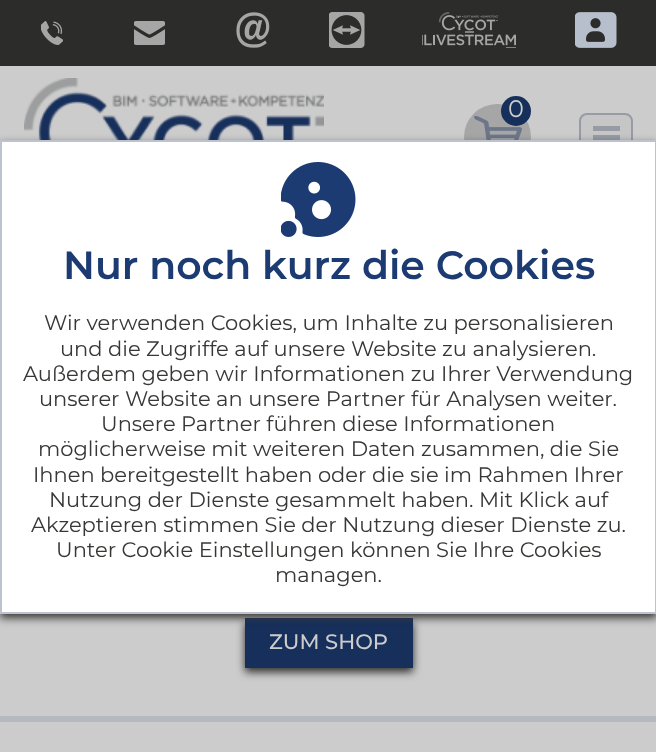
<!DOCTYPE html>
<meta charset="utf-8">
<style>body { margin: 0 } canvas { display: block }</style>
<canvas id="canvas" width="656" height="752"></canvas>
<img id="img1" src="images/1.png" hidden>
<img id="img2" src="images/2.png" hidden>
<img id="img3" src="images/3.png" hidden>
<img id="img4" src="images/4.png" hidden>
<img id="img5" src="images/5.png" hidden>
<img id="img6" src="images/6.png" hidden>
<img id="img7" src="images/7.png" hidden>
<img id="img8" src="images/8.png" hidden>
<img id="img9" src="images/9.png" hidden>
<script>
window.onload = function () {
    const canvas = document.getElementById('canvas');
    const context = canvas.getContext('2d');
    context.miterLimit = 4;
    context.fontKerning = 'normal';

    context.fillStyle = 'rgb(204, 204, 204)';
    context.fillRect(0, 0, 656, 752);
    context.fillStyle = 'rgb(44, 44, 43)';
    context.fillRect(0, 0, 656, 66);
    context.drawImage(document.getElementById('img1'), 41, 21, 22, 24);
    context.drawImage(document.getElementById('img2'), 134, 21, 31, 24);
    context.drawImage(document.getElementById('img3'), 236, 12, 34, 36);
    context.drawImage(document.getElementById('img4'), 329, 12, 36, 36);
    context.drawImage(document.getElementById('img5'), 422, 12, 94, 36);
    context.drawImage(document.getElementById('img6'), 575, 12, 42, 36);
    context.drawImage(document.getElementById('img7'), 24, 78, 300, 62);
    context.fillStyle = 'rgb(166, 166, 167)';
    context.beginPath();
    context.roundRect(464, 104, 67, 66, 33);
    context.fill();
    context.drawImage(document.getElementById('img8'), 474, 116, 48, 24);
    context.fillStyle = 'rgb(22, 47, 91)';
    context.beginPath();
    context.arc(516, 111, 15, 0, 2 * Math.PI);
    context.fill();
    context.fillStyle = 'rgb(198, 198, 198)';
    context.beginPath();
    context.roundRect(580, 114, 52, 46, 7);
    context.fill();
    context.strokeStyle = 'rgb(150, 155, 165)';
    context.lineWidth = 2;
    context.stroke();
    context.fillStyle = 'rgb(150, 155, 165)';
    context.fillRect(593, 126, 27, 5);
    context.fillRect(593, 135, 27, 5);
    context.fillStyle = 'rgb(44, 44, 43)';
    context.filter = 'blur(4.5px)';
    context.beginPath();
    context.rect(245, 623, 168, 49);
    context.fill();
    context.filter = 'none';
    context.fillStyle = 'rgb(22, 47, 91)';
    context.fillRect(245, 618, 168, 50);
    context.fillStyle = 'rgb(55, 55, 54)';
    context.filter = 'blur(4.5px)';
    context.beginPath();
    context.rect(0, 144, 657, 474);
    context.fill();
    context.filter = 'none';
    context.fillStyle = 'rgb(255, 255, 255)';
    context.beginPath();
    context.rect(1, 141, 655, 472);
    context.fill();
    context.strokeStyle = 'rgb(188, 194, 206)';
    context.stroke();
    context.drawImage(document.getElementById('img9'), 281, 162, 75, 75);
    context.fillStyle = 'rgb(181, 184, 190)';
    context.fillRect(0, 716, 656, 6);
    context.font = '24px Montserrat';
    context.fillStyle = 'rgb(204, 204, 204)';
    context.fillText('0', 508, 117);
    context.font = '600 39.4px Montserrat';
    context.fillStyle = 'rgb(27, 59, 114)';
    context.fillText('Nur noch kurz die Cookies', 63, 279);
    context.font = '21px Montserrat';
    context.fillStyle = 'rgb(55, 55, 54)';
    context.fillText('Wir verwenden Cookies, um Inhalte zu personalisieren', 44, 330);
    context.fillText('und die Zugriffe auf unsere Website zu analysieren.', 60, 356);
    context.fillText('Außerdem geben wir Informationen zu Ihrer Verwendung', 23, 381);
    context.fillText('unserer Website an unsere Partner für Analysen weiter.', 39, 406);
    context.fillText('Unsere Partner führen diese Informationen', 101, 431);
    context.fillText('möglicherweise mit weiteren Daten zusammen, die Sie', 38, 456);
    context.fillText('Ihnen bereitgestellt haben oder die sie im Rahmen Ihrer', 33, 482);
    context.fillText('Nutzung der Dienste gesammelt haben. Mit Klick auf', 49, 507);
    context.fillText('Akzeptieren stimmen Sie der Nutzung dieser Dienste zu.', 31, 532);
    context.fillText('Unter Cookie Einstellungen können Sie Ihre Cookies', 56, 557);
    context.fillText('managen.', 275, 582);
    context.font = '500 21px Montserrat';
    context.fillStyle = 'rgb(204, 204, 204)';
    context.fillText('ZUM SHOP', 269, 649);
};
</script>
